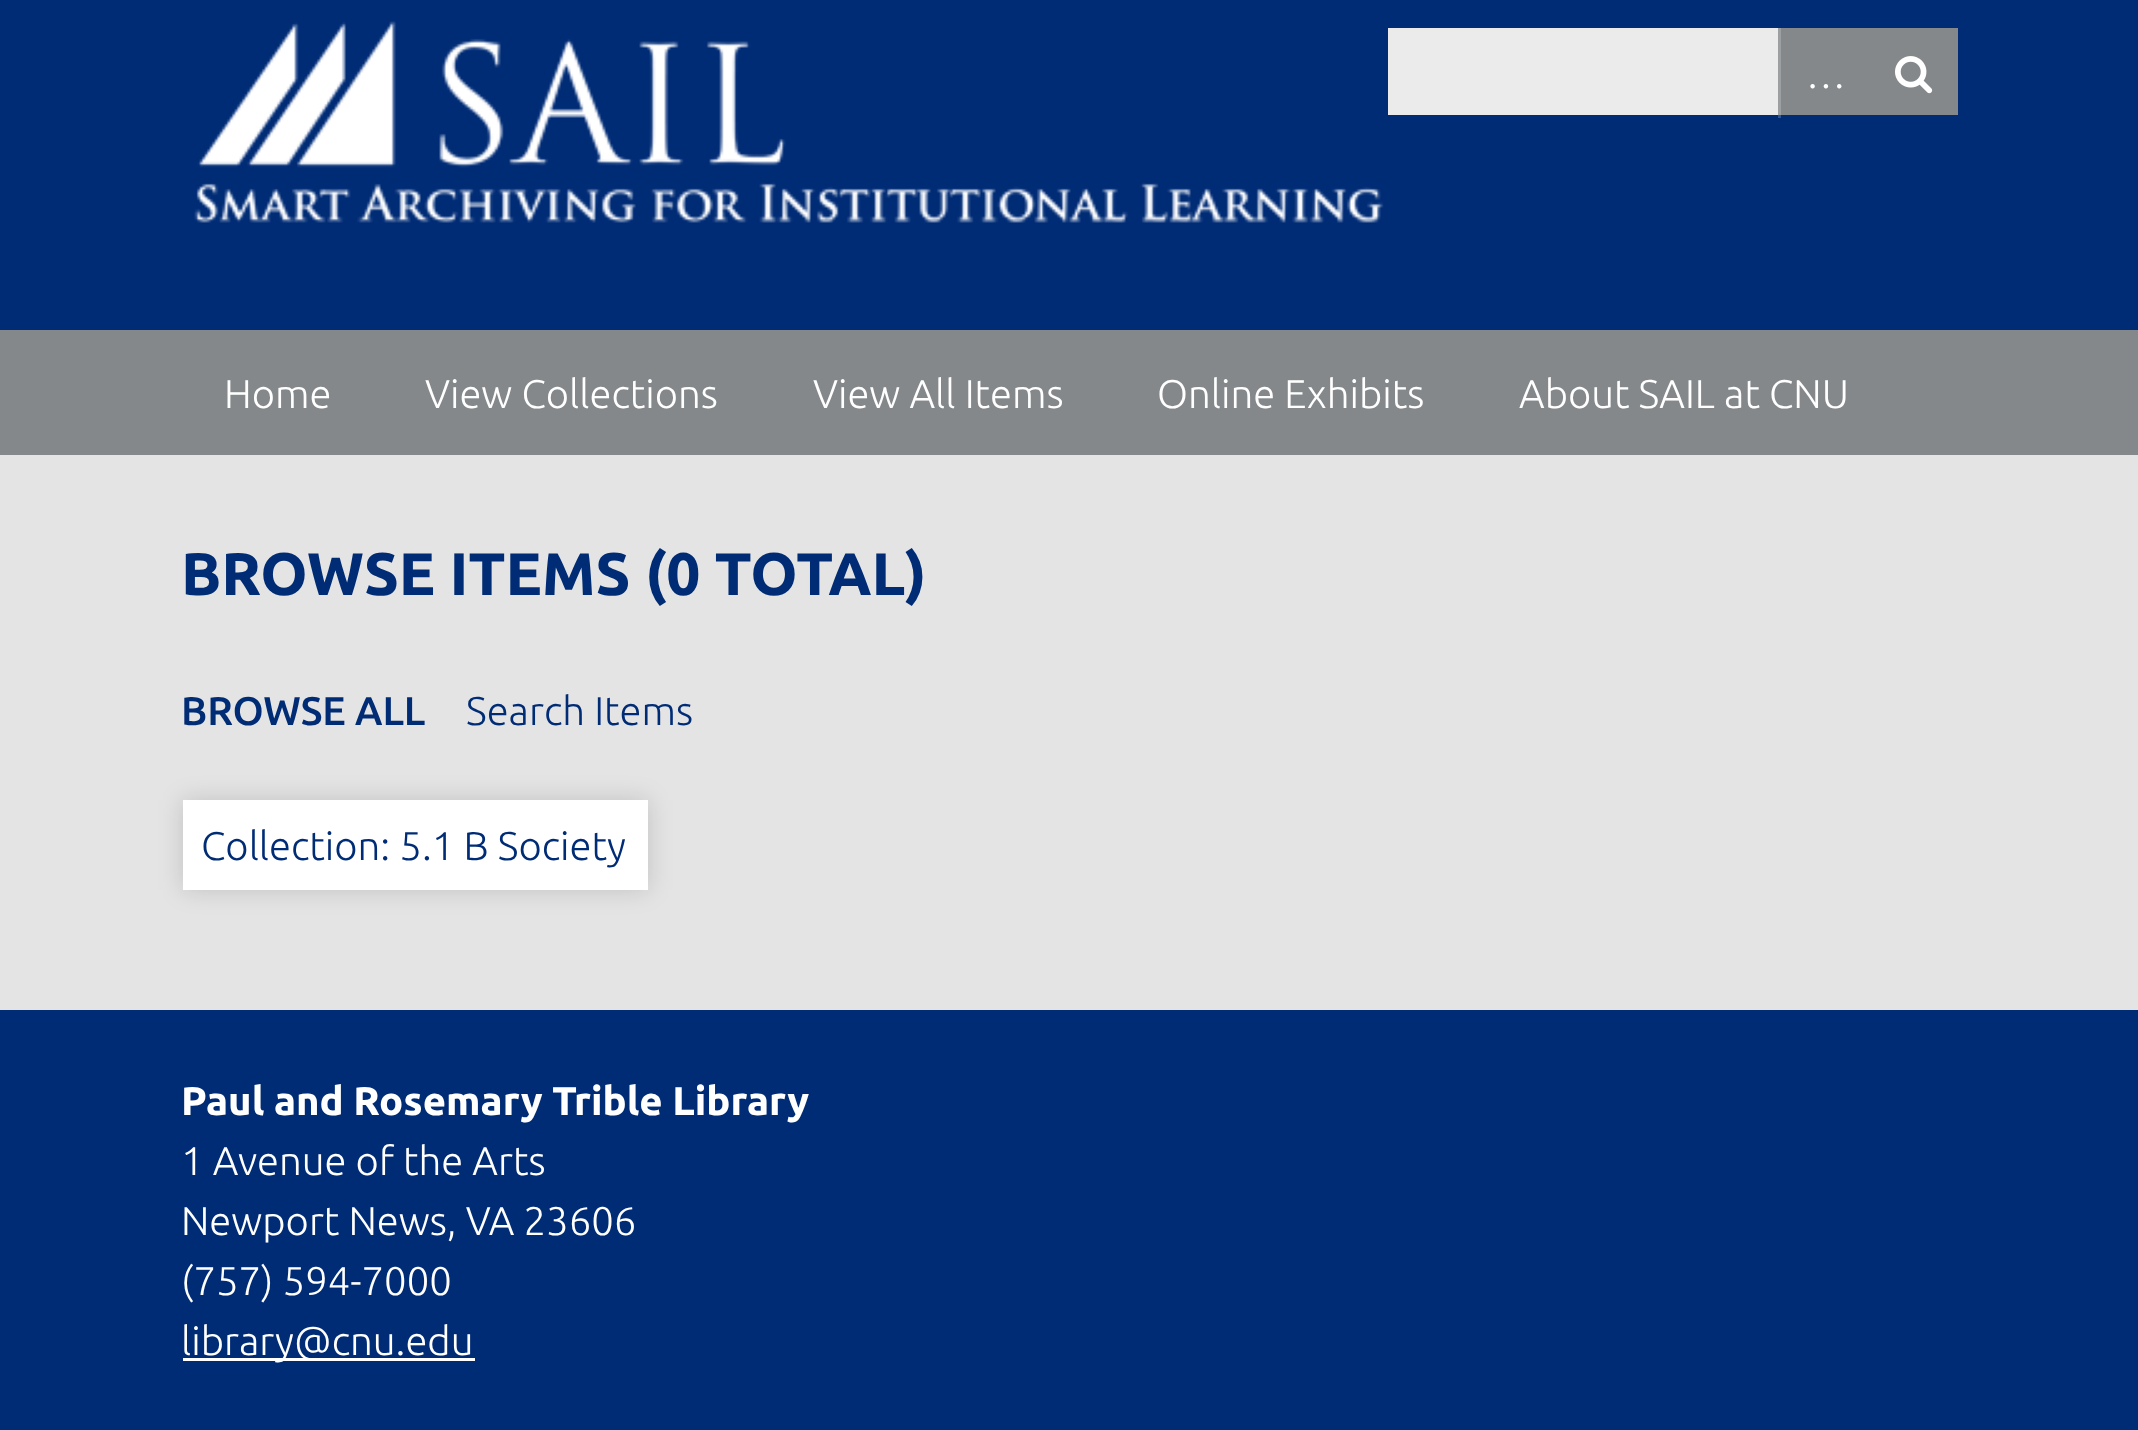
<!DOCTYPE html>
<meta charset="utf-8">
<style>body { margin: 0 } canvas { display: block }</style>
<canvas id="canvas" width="2138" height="1430"></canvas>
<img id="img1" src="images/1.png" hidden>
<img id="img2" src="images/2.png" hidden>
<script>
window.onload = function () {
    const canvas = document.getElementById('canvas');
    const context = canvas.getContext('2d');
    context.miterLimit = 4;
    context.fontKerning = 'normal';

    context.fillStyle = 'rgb(0, 44, 118)';
    context.fillRect(0, 0, 2138, 1430);
    context.fillStyle = 'rgb(51, 86, 145)';
    context.fillRect(1778, 115, 3, 3);
    context.drawImage(document.getElementById('img1'), 194, 21, 1190, 202);
    context.fillStyle = 'rgb(235, 235, 235)';
    context.fillRect(1388, 28, 390, 87);
    context.fillStyle = 'rgb(132, 136, 139)';
    context.fillRect(1781, 28, 177, 87);
    context.fillStyle = 'rgb(157, 160, 162)';
    context.fillRect(1778, 28, 3, 87);
    context.drawImage(document.getElementById('img2'), 1895, 56, 38, 38);
    context.fillStyle = 'rgb(132, 136, 139)';
    context.fillRect(0, 330, 2138, 125);
    context.fillStyle = 'rgb(228, 228, 228)';
    context.fillRect(0, 455, 2138, 555);
    context.fillStyle = 'rgba(0, 0, 0, 0.15)';
    context.filter = 'blur(12.5px)';
    context.beginPath();
    context.rect(183, 800, 465, 90);
    context.fill();
    context.filter = 'none';
    context.fillStyle = 'rgb(255, 255, 255)';
    context.fillRect(183, 800, 465, 90);
    context.fillRect(183, 1358, 292, 3);
    context.font = '300 40px Ubuntu';
    context.fillText('…', 1806, 88);
    context.fillText('Home', 224, 408);
    context.fillText('View Collections', 425, 408);
    context.fillText('View All Items', 813, 408);
    context.fillText('Online Exhibits', 1157, 408);
    context.fillText('About SAIL at CNU', 1519, 408);
    context.font = 'bold 60px Ubuntu';
    context.fillStyle = 'rgb(0, 44, 118)';
    context.fillText('BROWSE ITEMS (0 TOTAL)', 181, 595);
    context.font = '500 40px Ubuntu';
    context.fillText('BROWSE ALL', 181, 725);
    context.font = '300 40px Ubuntu';
    context.fillText('Search Items', 466, 725);
    context.fillText('Collection: 5.1 B Society', 201, 860);
    context.font = 'bold 40px Ubuntu';
    context.fillStyle = 'rgb(255, 255, 255)';
    context.fillText('Paul and Rosemary Trible Library', 181, 1115);
    context.font = '300 40px Ubuntu';
    context.fillText('1 Avenue of the Arts', 181, 1175);
    context.fillText('Newport News, VA 23606', 181, 1235);
    context.fillText('(757) 594-7000', 181, 1295);
    context.fillText('library@cnu.edu', 181, 1355);
};
</script>
